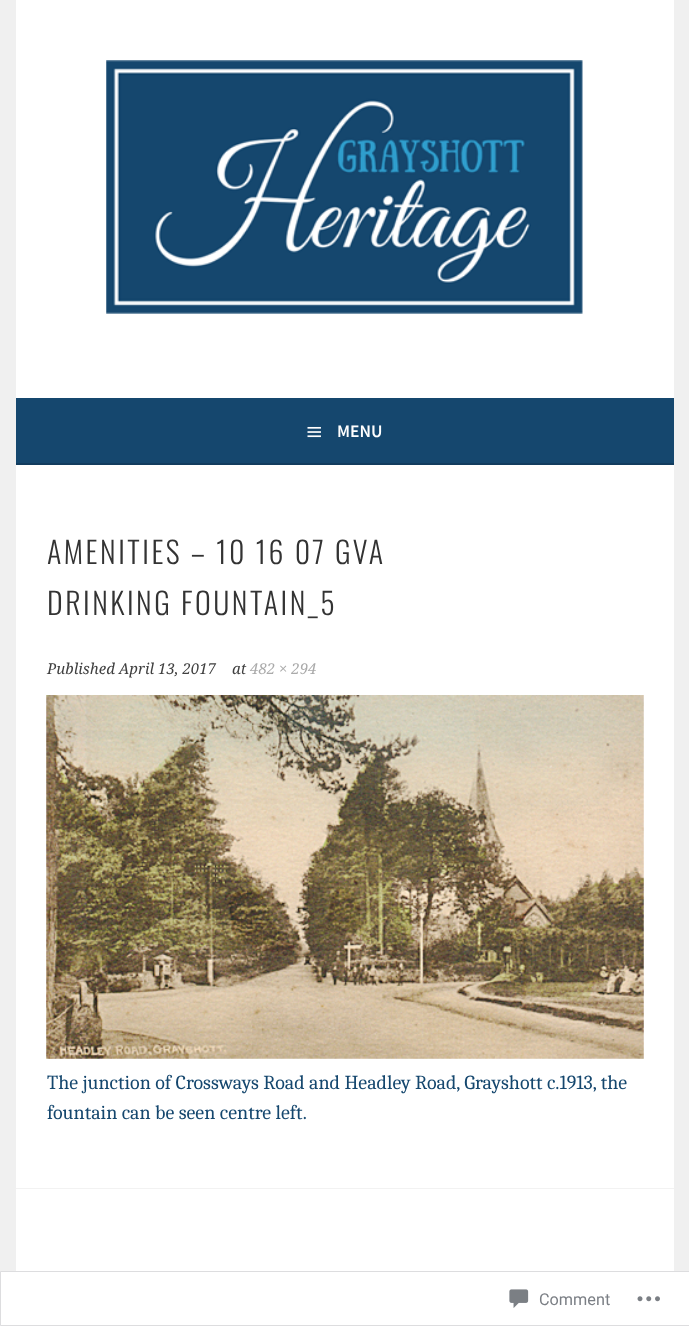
<!DOCTYPE html>
<meta charset="utf-8">
<style>body { margin: 0 } canvas { display: block }</style>
<canvas id="canvas" width="689" height="1326"></canvas>
<img id="img1" src="images/1.png" hidden>
<img id="img2" src="images/2.png" hidden>
<img id="img3" src="images/3.png" hidden>
<img id="img4" src="images/4.png" hidden>
<img id="img5" src="images/5.png" hidden>
<script>
window.onload = function () {
    const canvas = document.getElementById('canvas');
    const context = canvas.getContext('2d');
    context.miterLimit = 4;
    context.fontKerning = 'normal';

    context.fillStyle = 'rgb(240, 240, 240)';
    context.fillRect(0, 0, 689, 1326);
    context.fillStyle = 'rgb(255, 255, 255)';
    context.fillRect(16, 0, 658, 398);
    context.drawImage(document.getElementById('img1'), 106, 60, 477, 254);
    context.fillStyle = 'rgb(21, 71, 110)';
    context.fillRect(16, 398, 658, 65);
    context.fillStyle = 'rgb(18, 60, 94)';
    context.fillRect(16, 463, 658, 2);
    context.drawImage(document.getElementById('img2'), 307, 426, 14, 12);
    context.fillStyle = 'rgb(255, 255, 255)';
    context.fillRect(16, 465, 658, 806);
    context.drawImage(document.getElementById('img3'), 46, 695, 598, 364);
    context.fillStyle = 'rgb(242, 242, 242)';
    context.fillRect(16, 1188, 658, 1);
    context.fillStyle = 'rgb(255, 255, 255)';
    context.beginPath();
    context.rect(0.5, 1271.5, 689, 54);
    context.fill();
    context.strokeStyle = 'rgb(221, 221, 223)';
    context.stroke();
    context.drawImage(document.getElementById('img4'), 509, 1289, 20, 19);
    context.drawImage(document.getElementById('img5'), 637, 1296, 23, 6);
    context.font = '600 17.5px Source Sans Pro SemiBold';
    context.fillText('MENU', 337, 437);
    context.letterSpacing = '2.5px';
    context.font = '300 30px Oswald';
    context.fillStyle = 'rgb(51, 51, 51)';
    context.fillText('AMENITIES – 10 16 07 GVA', 47, 564);
    context.fillText('DRINKING FOUNTAIN_5', 47, 615);
    context.letterSpacing = '0px';
    context.font = 'italic 15px Droid Serif';
    context.fillStyle = 'rgb(64, 64, 64)';
    context.fillText('Published April 13, 2017', 47, 674);
    context.fillText('at', 232, 674);
    context.fillStyle = 'rgb(170, 170, 170)';
    context.fillText('482 × 294', 250, 674);
    context.font = '20px Caladea';
    context.fillStyle = 'rgb(21, 71, 110)';
    context.fillText('The junction of Crossways Road and Headley Road, Grayshott c.1913, the', 47, 1089);
    context.fillText('fountain can be seen centre left.', 47, 1119);
    context.font = '16.25px Roboto';
    context.fillStyle = 'rgb(123, 127, 133)';
    context.fillText('Comment', 539, 1305);
};
</script>
